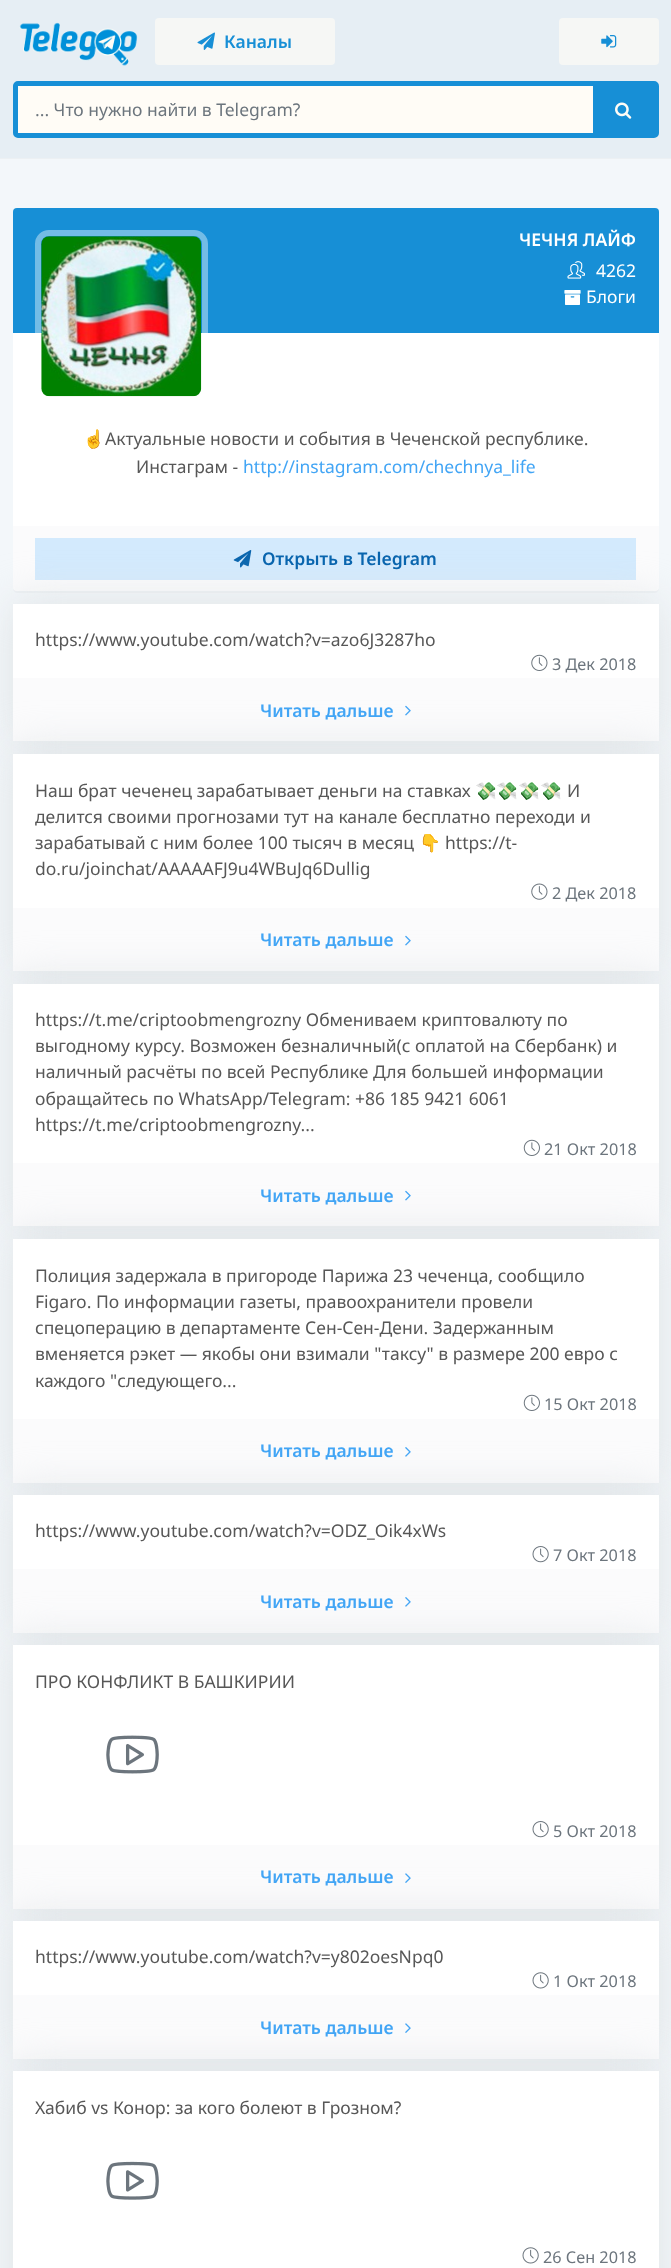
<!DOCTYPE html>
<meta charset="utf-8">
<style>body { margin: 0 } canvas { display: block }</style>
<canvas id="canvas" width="671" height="2268"></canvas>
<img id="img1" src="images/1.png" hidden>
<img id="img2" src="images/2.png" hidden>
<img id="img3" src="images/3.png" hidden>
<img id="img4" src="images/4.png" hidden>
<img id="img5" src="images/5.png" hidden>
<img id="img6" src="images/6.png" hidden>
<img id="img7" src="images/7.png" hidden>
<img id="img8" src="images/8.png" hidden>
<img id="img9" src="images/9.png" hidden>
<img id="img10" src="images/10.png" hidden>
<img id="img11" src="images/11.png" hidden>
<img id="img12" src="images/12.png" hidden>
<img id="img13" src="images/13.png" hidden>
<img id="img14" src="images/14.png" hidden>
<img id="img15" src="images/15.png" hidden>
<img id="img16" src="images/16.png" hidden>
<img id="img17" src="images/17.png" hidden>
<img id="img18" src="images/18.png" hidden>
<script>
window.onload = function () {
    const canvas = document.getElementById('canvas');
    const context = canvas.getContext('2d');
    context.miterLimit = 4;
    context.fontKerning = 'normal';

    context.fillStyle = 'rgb(243, 247, 250)';
    context.fillRect(0, 0, 671, 2268);
    context.fillStyle = 'rgb(230, 238, 244)';
    context.fillRect(0, 0, 671, 158);
    context.drawImage(document.getElementById('img1'), 19, 22, 119, 44);
    context.fillStyle = 'rgb(246, 247, 245)';
    context.beginPath();
    context.roundRect(155, 18, 180, 47, 4);
    context.fill();
    context.drawImage(document.getElementById('img2'), 197, 32, 18, 18);
    context.beginPath();
    context.roundRect(559, 18, 100, 47, 4);
    context.fill();
    context.drawImage(document.getElementById('img3'), 601, 35, 16, 13);
    context.fillStyle = 'rgb(236, 240, 243)';
    context.fillRect(0, 158, 671, 1);
    context.beginPath();
    context.roundRect(15.5, 83.5, 641, 52, 2.5);
    context.strokeStyle = 'rgb(23, 143, 214)';
    context.lineWidth = 5;
    context.stroke();
    context.fillStyle = 'rgb(255, 252, 246)';
    context.fillRect(18, 86, 575, 47);
    context.fillStyle = 'rgb(23, 143, 214)';
    context.fillRect(593, 86, 61, 47);
    context.drawImage(document.getElementById('img4'), 615, 102, 17, 17);
    context.fillStyle = 'rgb(236, 240, 243)';
    context.beginPath();
    context.moveTo(13, 588);
    context.bezierCurveTo(13, 591, 15, 593, 18, 593);
    context.lineTo(654, 593);
    context.bezierCurveTo(657, 593, 659, 591, 659, 588);
    context.lineTo(659, 212);
    context.lineTo(659, 586);
    context.bezierCurveTo(659, 589, 657, 591, 654, 591);
    context.lineTo(18, 591);
    context.bezierCurveTo(16, 591, 14, 590, 13, 588);
    context.closePath();
    context.fill();
    context.fillStyle = 'rgb(255, 255, 255)';
    context.beginPath();
    context.roundRect(13, 208, 646, 383, 5);
    context.fill();
    context.fillStyle = 'rgb(23, 143, 214)';
    context.beginPath();
    context.roundRect(13, 208, 646, 125, [4, 4, 0, 0]);
    context.fill();
    context.beginPath();
    context.roundRect(38, 233, 167, 167, 11);
    context.strokeStyle = 'rgba(255, 255, 255, 0.4)';
    context.lineWidth = 6;
    context.stroke();
    context.drawImage(document.getElementById('img5'), 41, 236, 161, 161);
    context.drawImage(document.getElementById('img6'), 567, 261, 18, 18);
    context.drawImage(document.getElementById('img7'), 564, 290, 17, 15);
    context.fillStyle = 'rgb(251, 251, 252)';
    context.beginPath();
    context.roundRect(13, 526, 646, 65, [0, 0, 4, 4]);
    context.fill();
    context.fillStyle = 'rgb(211, 234, 253)';
    context.fillRect(35, 538, 601, 42);
    context.drawImage(document.getElementById('img8'), 233, 550, 19, 18);
    context.fillStyle = 'rgb(222, 226, 229)';
    context.filter = 'blur(22.5px)';
    context.beginPath();
    context.rect(13, 604, 646, 137);
    context.fill();
    context.filter = 'none';
    context.fillStyle = 'rgb(255, 255, 255)';
    context.fillRect(13, 604, 646, 74);
    context.drawImage(document.getElementById('img9'), 531, 654, 17, 17);
    context.fillStyle = 'rgb(251, 251, 252)';
    context.fillRect(13, 678, 646, 63);
    context.drawImage(document.getElementById('img10'), 405, 705, 6, 11);
    context.fillStyle = 'rgb(222, 226, 229)';
    context.filter = 'blur(22.5px)';
    context.beginPath();
    context.rect(13, 754, 646, 217);
    context.fill();
    context.filter = 'none';
    context.fillStyle = 'rgb(255, 255, 255)';
    context.fillRect(13, 754, 646, 154);
    context.drawImage(document.getElementById('img11'), 531, 883, 17, 17);
    context.fillStyle = 'rgb(251, 251, 252)';
    context.fillRect(13, 908, 646, 63);
    context.drawImage(document.getElementById('img10'), 405, 935, 6, 11);
    context.fillStyle = 'rgb(222, 226, 229)';
    context.filter = 'blur(22.5px)';
    context.beginPath();
    context.rect(13, 984, 646, 242);
    context.fill();
    context.filter = 'none';
    context.fillStyle = 'rgb(255, 255, 255)';
    context.fillRect(13, 984, 646, 179);
    context.drawImage(document.getElementById('img12'), 523, 1139, 17, 17);
    context.fillStyle = 'rgb(251, 251, 252)';
    context.fillRect(13, 1163, 646, 63);
    context.drawImage(document.getElementById('img10'), 405, 1190, 6, 11);
    context.fillStyle = 'rgb(222, 226, 229)';
    context.filter = 'blur(22.5px)';
    context.beginPath();
    context.rect(13, 1239, 646, 244);
    context.fill();
    context.filter = 'none';
    context.fillStyle = 'rgb(255, 255, 255)';
    context.fillRect(13, 1239, 646, 180);
    context.drawImage(document.getElementById('img12'), 523, 1394, 17, 17);
    context.fillStyle = 'rgb(251, 251, 252)';
    context.fillRect(13, 1419, 646, 64);
    context.drawImage(document.getElementById('img13'), 405, 1447, 6, 10);
    context.fillStyle = 'rgb(222, 226, 229)';
    context.filter = 'blur(22.5px)';
    context.beginPath();
    context.rect(13, 1495, 646, 138);
    context.fill();
    context.filter = 'none';
    context.fillStyle = 'rgb(255, 255, 255)';
    context.fillRect(13, 1495, 646, 74);
    context.drawImage(document.getElementById('img14'), 532, 1546, 17, 17);
    context.fillStyle = 'rgb(251, 251, 252)';
    context.fillRect(13, 1569, 646, 64);
    context.drawImage(document.getElementById('img13'), 405, 1597, 6, 10);
    context.fillStyle = 'rgb(222, 226, 229)';
    context.filter = 'blur(22.5px)';
    context.beginPath();
    context.rect(13, 1645, 646, 264);
    context.fill();
    context.filter = 'none';
    context.fillStyle = 'rgb(255, 255, 255)';
    context.fillRect(13, 1645, 646, 200);
    context.drawImage(document.getElementById('img15'), 106, 1735, 53, 39);
    context.drawImage(document.getElementById('img14'), 532, 1821, 17, 17);
    context.fillStyle = 'rgb(251, 251, 252)';
    context.fillRect(13, 1845, 646, 64);
    context.drawImage(document.getElementById('img16'), 405, 1873, 6, 10);
    context.fillStyle = 'rgb(222, 226, 229)';
    context.filter = 'blur(22.5px)';
    context.beginPath();
    context.rect(13, 1921, 646, 138);
    context.fill();
    context.filter = 'none';
    context.fillStyle = 'rgb(255, 255, 255)';
    context.fillRect(13, 1921, 646, 74);
    context.drawImage(document.getElementById('img17'), 532, 1972, 17, 17);
    context.fillStyle = 'rgb(251, 251, 252)';
    context.fillRect(13, 1995, 646, 64);
    context.drawImage(document.getElementById('img16'), 405, 2023, 6, 10);
    context.fillStyle = 'rgb(222, 226, 229)';
    context.filter = 'blur(22.5px)';
    context.beginPath();
    context.rect(13, 2071, 646, 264);
    context.fill();
    context.filter = 'none';
    context.fillStyle = 'rgb(255, 255, 255)';
    context.fillRect(13, 2071, 646, 197);
    context.drawImage(document.getElementById('img18'), 106, 2161, 53, 39);
    context.drawImage(document.getElementById('img17'), 522, 2247, 17, 17);
    context.font = '600 17.5px Noto Sans';
    context.fillStyle = 'rgb(23, 143, 214)';
    context.fillText('Каналы', 224, 48);
    context.font = '17.5px Noto Sans';
    context.fillStyle = 'rgb(108, 117, 125)';
    context.fillText('... Что нужно найти в Telegram?', 35, 116);
    context.font = '600 17.5px Noto Sans';
    context.fillStyle = 'rgb(255, 255, 255)';
    context.fillText('ЧЕЧНЯ ЛАЙФ', 519, 246);
    context.font = '17.5px Noto Sans';
    context.fillText('4262', 596, 277);
    context.fillText('Блоги', 586, 303);
    context.font = '17.5px Noto Color Emoji';
    context.fillStyle = 'rgb(87, 87, 87)';
    context.fillText('☝', 83, 445);
    context.font = '17.5px Noto Sans';
    context.fillText('Актуальные новости и события в Чеченской республике.', 105, 445);
    context.fillText('Инстаграм -', 136, 473);
    context.fillStyle = 'rgb(66, 165, 245)';
    context.fillText('http://instagram.com/chechnya_life', 243, 473);
    context.font = '600 17.5px Noto Sans';
    context.fillStyle = 'rgb(9, 101, 174)';
    context.fillText('Открыть в Telegram', 262, 565);
    context.font = '17.5px Noto Sans';
    context.fillStyle = 'rgb(87, 87, 87)';
    context.fillText('https://www.youtube.com/watch?v=azo6J3287ho', 35, 646);
    context.font = '16.25px Noto Sans';
    context.fillStyle = 'rgb(108, 117, 125)';
    context.fillText('3 Дек 2018', 552, 670);
    context.font = '600 17.5px Noto Sans';
    context.fillStyle = 'rgb(66, 165, 245)';
    context.fillText('Читать дальше', 260, 717);
    context.font = '17.5px Noto Sans';
    context.fillStyle = 'rgb(87, 87, 87)';
    context.fillText('Наш брат чеченец зарабатывает деньги на ставках', 35, 797);
    context.font = '17.5px Noto Color Emoji';
    context.fillText('💸💸💸💸', 475, 797);
    context.font = '17.5px Noto Sans';
    context.fillText('И', 567, 797);
    context.fillText('делится своими прогнозами тут на канале бесплатно переходи и', 35, 823);
    context.fillText('зарабатывай с ним более 100 тысяч в месяц', 35, 849);
    context.font = '17.5px Noto Color Emoji';
    context.fillText('👇', 419, 849);
    context.font = '17.5px Noto Sans';
    context.fillText('https://t-', 445, 849);
    context.fillText('do.ru/joinchat/AAAAAFJ9u4WBuJq6Dullig', 35, 875);
    context.font = '16.25px Noto Sans';
    context.fillStyle = 'rgb(108, 117, 125)';
    context.fillText('2 Дек 2018', 552, 899);
    context.font = '600 17.5px Noto Sans';
    context.fillStyle = 'rgb(66, 165, 245)';
    context.fillText('Читать дальше', 260, 946);
    context.font = '17.5px Noto Sans';
    context.fillStyle = 'rgb(87, 87, 87)';
    context.fillText('https://t.me/criptoobmengrozny Обмениваем криптовалюту по', 35, 1026);
    context.fillText('выгодному курсу. Возможен безналичный(с оплатой на Сбербанк) и', 35, 1052);
    context.fillText('наличный расчёты по всей Республике Для большей информации', 35, 1078);
    context.fillText('обращайтесь по WhatsApp/Telegram: +86 185 9421 6061', 35, 1105);
    context.fillText('https://t.me/criptoobmengrozny...', 35, 1131);
    context.font = '16.25px Noto Sans';
    context.fillStyle = 'rgb(108, 117, 125)';
    context.fillText('21 Окт 2018', 544, 1155);
    context.font = '600 17.5px Noto Sans';
    context.fillStyle = 'rgb(66, 165, 245)';
    context.fillText('Читать дальше', 260, 1202);
    context.font = '17.5px Noto Sans';
    context.fillStyle = 'rgb(87, 87, 87)';
    context.fillText('Полиция задержала в пригороде Парижа 23 чеченца, сообщило', 35, 1282);
    context.fillText('Figaro. По информации газеты, правоохранители провели', 35, 1308);
    context.fillText('спецоперацию в департаменте Сен-Сен-Дени. Задержанным', 35, 1334);
    context.fillText('вменяется рэкет — якобы они взимали "таксу" в размере 200 евро с', 35, 1360);
    context.fillText('каждого "следующего...', 35, 1387);
    context.font = '16.25px Noto Sans';
    context.fillStyle = 'rgb(108, 117, 125)';
    context.fillText('15 Окт 2018', 544, 1410);
    context.font = '600 17.5px Noto Sans';
    context.fillStyle = 'rgb(66, 165, 245)';
    context.fillText('Читать дальше', 260, 1457);
    context.font = '17.5px Noto Sans';
    context.fillStyle = 'rgb(87, 87, 87)';
    context.fillText('https://www.youtube.com/watch?v=ODZ_Oik4xWs', 35, 1537);
    context.font = '16.25px Noto Sans';
    context.fillStyle = 'rgb(108, 117, 125)';
    context.fillText('7 Окт 2018', 553, 1561);
    context.font = '600 17.5px Noto Sans';
    context.fillStyle = 'rgb(66, 165, 245)';
    context.fillText('Читать дальше', 260, 1608);
    context.font = '17.5px Noto Sans';
    context.fillStyle = 'rgb(87, 87, 87)';
    context.fillText('ПРО КОНФЛИКТ В БАШКИРИИ', 35, 1688);
    context.font = '16.25px Noto Sans';
    context.fillStyle = 'rgb(108, 117, 125)';
    context.fillText('5 Окт 2018', 553, 1837);
    context.font = '600 17.5px Noto Sans';
    context.fillStyle = 'rgb(66, 165, 245)';
    context.fillText('Читать дальше', 260, 1883);
    context.font = '17.5px Noto Sans';
    context.fillStyle = 'rgb(87, 87, 87)';
    context.fillText('https://www.youtube.com/watch?v=y802oesNpq0', 35, 1963);
    context.font = '16.25px Noto Sans';
    context.fillStyle = 'rgb(108, 117, 125)';
    context.fillText('1 Окт 2018', 553, 1987);
    context.font = '600 17.5px Noto Sans';
    context.fillStyle = 'rgb(66, 165, 245)';
    context.fillText('Читать дальше', 260, 2034);
    context.font = '17.5px Noto Sans';
    context.fillStyle = 'rgb(87, 87, 87)';
    context.fillText('Хабиб vs Конор: за кого болеют в Грозном?', 35, 2114);
    context.font = '16.25px Noto Sans';
    context.fillStyle = 'rgb(108, 117, 125)';
    context.fillText('26 Сен 2018', 543, 2263);
};
</script>
